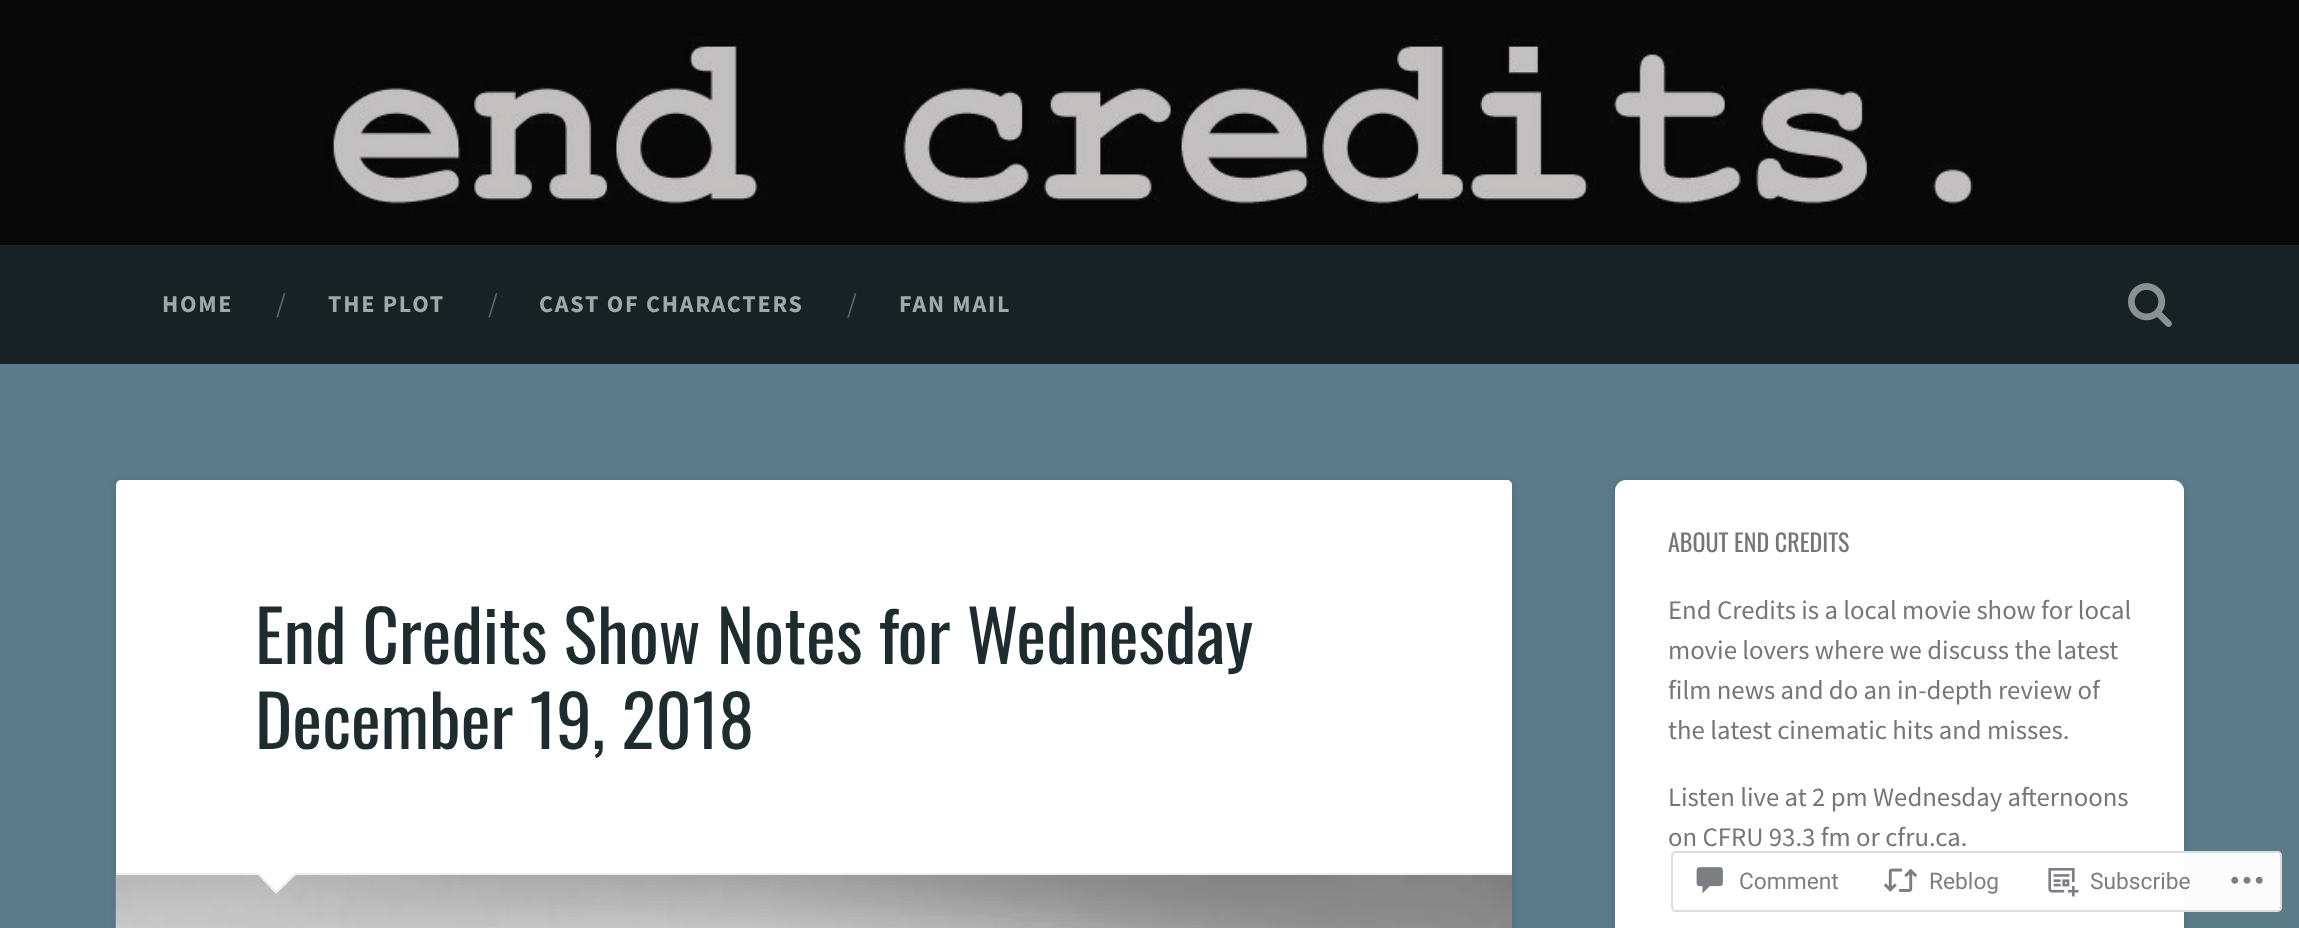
<!DOCTYPE html>
<meta charset="utf-8">
<style>body { margin: 0 } canvas { display: block }</style>
<canvas id="canvas" width="2299" height="928"></canvas>
<img id="img1" src="images/1.png" hidden>
<img id="img2" src="images/2.png" hidden>
<img id="img3" src="images/3.png" hidden>
<img id="img4" src="images/4.png" hidden>
<img id="img5" src="images/5.png" hidden>
<img id="img6" src="images/6.png" hidden>
<img id="img7" src="images/7.png" hidden>
<script>
window.onload = function () {
    const canvas = document.getElementById('canvas');
    const context = canvas.getContext('2d');
    context.miterLimit = 4;
    context.fontKerning = 'normal';

    context.fillStyle = 'rgb(91, 123, 137)';
    context.fillRect(0, 0, 2299, 928);
    context.drawImage(document.getElementById('img1'), 0, 0, 2299, 245);
    context.fillStyle = 'rgb(23, 34, 37)';
    context.fillRect(0, 245, 2299, 119);
    context.drawImage(document.getElementById('img2'), 2128, 283, 44, 44);
    context.fillStyle = 'rgba(0, 0, 0, 0.1)';
    context.filter = 'blur(3.5px)';
    context.beginPath();
    context.roundRect(116, 481, 1396, 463, 5);
    context.fill();
    context.filter = 'none';
    context.fillStyle = 'rgb(255, 255, 255)';
    context.beginPath();
    context.roundRect(116, 480, 1396, 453, 5);
    context.fill();
    context.fillStyle = 'rgb(238, 238, 238)';
    context.fillRect(116, 873, 1396, 2);
    context.drawImage(document.getElementById('img3'), 115, 875, 1397, 53);
    context.beginPath();
    context.moveTo(256, 873);
    context.lineTo(298, 873);
    context.lineTo(276, 894);
    context.closePath();
    context.fill();
    context.fillStyle = 'rgb(255, 255, 255)';
    context.beginPath();
    context.moveTo(257, 871.5);
    context.lineTo(296, 871.5);
    context.lineTo(276.5, 891);
    context.closePath();
    context.fill();
    context.fillStyle = 'rgba(0, 0, 0, 0.1)';
    context.filter = 'blur(3.5px)';
    context.beginPath();
    context.roundRect(1615, 481, 569, 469, 11);
    context.fill();
    context.filter = 'none';
    context.fillStyle = 'rgb(255, 255, 255)';
    context.beginPath();
    context.roundRect(1615, 480, 569, 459, 11);
    context.fill();
    context.fillStyle = 'rgba(255, 255, 255, 0.98)';
    context.beginPath();
    context.roundRect(1671, 851, 611, 61, 5);
    context.fill();
    context.beginPath();
    context.roundRect(1672, 852, 609, 59, 4);
    context.strokeStyle = 'rgba(220, 220, 222, 0.98)';
    context.lineWidth = 2;
    context.stroke();
    context.drawImage(document.getElementById('img4'), 1696, 867, 27, 27);
    context.drawImage(document.getElementById('img5'), 1883, 868, 35, 24);
    context.drawImage(document.getElementById('img6'), 2048, 868, 31, 29);
    context.drawImage(document.getElementById('img7'), 2231, 876, 32, 8);
    context.letterSpacing = '1.75px';
    context.font = 'bold 24.1px Source Sans Pro';
    context.fillStyle = 'rgb(162, 167, 168)';
    context.fillText('HOME', 162, 312);
    context.letterSpacing = '0px';
    context.font = '28px Source Sans Pro';
    context.fillStyle = 'rgb(93, 100, 102)';
    context.fillText('/', 276, 313);
    context.letterSpacing = '1.75px';
    context.font = 'bold 24.1px Source Sans Pro';
    context.fillStyle = 'rgb(162, 167, 168)';
    context.fillText('THE PLOT', 328, 312);
    context.letterSpacing = '0px';
    context.font = '28px Source Sans Pro';
    context.fillStyle = 'rgb(93, 100, 102)';
    context.fillText('/', 488, 313);
    context.letterSpacing = '1.75px';
    context.font = 'bold 24.1px Source Sans Pro';
    context.fillStyle = 'rgb(162, 167, 168)';
    context.fillText('CAST OF CHARACTERS', 539, 312);
    context.letterSpacing = '0px';
    context.font = '28px Source Sans Pro';
    context.fillStyle = 'rgb(93, 100, 102)';
    context.fillText('/', 847, 313);
    context.letterSpacing = '1.75px';
    context.font = 'bold 24.1px Source Sans Pro';
    context.fillStyle = 'rgb(162, 167, 168)';
    context.fillText('FAN MAIL', 899, 312);
    context.letterSpacing = '0px';
    context.font = '70.9px Oswald';
    context.fillStyle = 'rgb(30, 44, 48)';
    context.fillText('End Credits Show Notes for Wednesday', 255, 664);
    context.fillText('December 19, 2018', 255, 749);
    context.font = '24.1px Oswald';
    context.fillStyle = 'rgb(118, 118, 118)';
    context.fillText('ABOUT END CREDITS', 1668, 552);
    context.font = '26.75px Source Sans Pro';
    context.fillText('End Credits is a local movie show for local', 1668, 619);
    context.fillText('movie lovers where we discuss the latest', 1668, 659);
    context.fillText('film news and do an in-depth review of', 1668, 699);
    context.fillText('the latest cinematic hits and misses.', 1668, 739);
    context.fillText('Listen live at 2 pm Wednesday afternoons', 1668, 806);
    context.fillText('on CFRU 93.3 fm or cfru.ca.', 1668, 846);
    context.font = '22.75px Roboto';
    context.fillStyle = 'rgb(123, 127, 133)';
    context.fillText('Comment', 1739, 889);
    context.fillText('Reblog', 1929, 889);
    context.fillText('Subscribe', 2090, 889);
};
</script>
